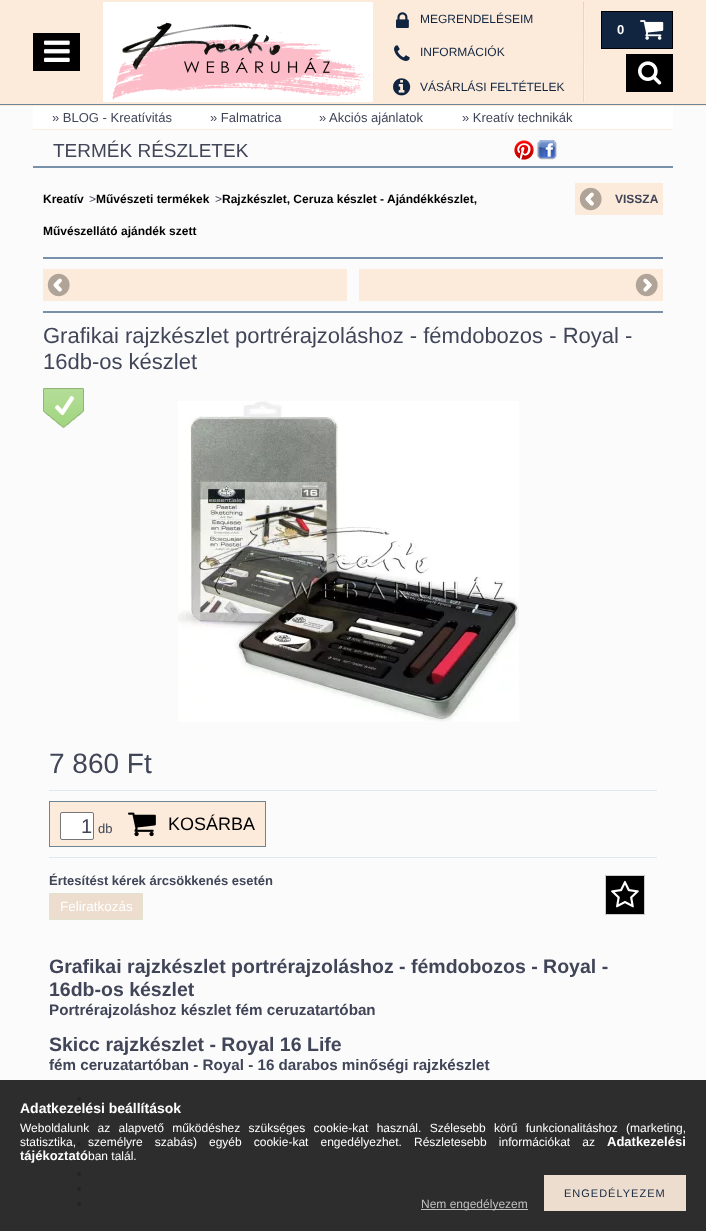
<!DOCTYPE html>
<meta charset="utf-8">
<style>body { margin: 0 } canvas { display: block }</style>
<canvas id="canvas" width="706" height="1231"></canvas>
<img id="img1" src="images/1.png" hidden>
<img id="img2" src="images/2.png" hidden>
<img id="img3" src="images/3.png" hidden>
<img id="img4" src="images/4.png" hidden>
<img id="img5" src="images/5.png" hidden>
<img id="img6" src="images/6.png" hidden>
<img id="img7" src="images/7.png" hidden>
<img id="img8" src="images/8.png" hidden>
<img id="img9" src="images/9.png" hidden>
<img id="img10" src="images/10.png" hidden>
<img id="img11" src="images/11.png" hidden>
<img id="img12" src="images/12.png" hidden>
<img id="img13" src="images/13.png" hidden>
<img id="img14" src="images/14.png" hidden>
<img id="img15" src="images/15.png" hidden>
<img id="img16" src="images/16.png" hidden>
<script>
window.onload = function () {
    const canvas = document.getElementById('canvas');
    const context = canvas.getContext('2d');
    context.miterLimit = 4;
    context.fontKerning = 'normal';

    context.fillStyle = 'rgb(251, 251, 251)';
    context.fillRect(0, 0, 706, 1231);
    context.fillStyle = 'rgb(252, 235, 219)';
    context.fillRect(0, 0, 706, 106);
    context.fillStyle = 'rgb(109, 134, 150)';
    context.fillRect(0, 104, 706, 1);
    context.drawImage(document.getElementById('img1'), 103, 2, 270, 100);
    context.drawImage(document.getElementById('img2'), 583, 2, 2, 100);
    context.drawImage(document.getElementById('img3'), 396, 12, 13, 16);
    context.drawImage(document.getElementById('img4'), 394, 45, 16, 16);
    context.drawImage(document.getElementById('img5'), 393, 78, 18, 18);
    context.fillStyle = 'rgb(17, 37, 64)';
    context.fillRect(602, 12, 70, 36);
    context.fillStyle = 'rgb(0, 0, 0)';
    context.fillRect(601, 11, 72, 1);
    context.fillRect(601, 48, 35, 1);
    context.fillRect(601, 11, 1, 38);
    context.fillRect(672, 11, 1, 38);
    context.fillRect(636, 48, 37, 1);
    context.drawImage(document.getElementById('img6'), 640, 20, 24, 20);
    context.fillRect(626, 54, 47, 38);
    context.drawImage(document.getElementById('img7'), 638, 61, 24, 24);
    context.fillRect(33, 33, 47, 38);
    context.drawImage(document.getElementById('img8'), 44, 40, 26, 22);
    context.fillStyle = 'rgb(255, 255, 255)';
    context.fillRect(33, 106, 640, 23);
    context.fillStyle = 'rgb(252, 235, 219)';
    context.fillRect(33, 129, 640, 1);
    context.fillStyle = 'rgb(120, 144, 170)';
    context.fillRect(33, 166, 640, 2);
    context.fillStyle = 'rgb(252, 235, 219)';
    context.fillRect(575, 183, 88, 32);
    context.drawImage(document.getElementById('img9'), 579, 187, 23, 24);
    context.fillStyle = 'rgb(120, 144, 170)';
    context.fillRect(43, 257, 620, 2);
    context.fillStyle = 'rgb(252, 235, 219)';
    context.fillRect(43, 269, 304, 32);
    context.drawImage(document.getElementById('img9'), 47, 273, 23, 24);
    context.fillRect(359, 269, 304, 32);
    context.drawImage(document.getElementById('img10'), 635, 273, 23, 24);
    context.fillStyle = 'rgb(120, 144, 170)';
    context.fillRect(43, 311, 620, 2);
    context.drawImage(document.getElementById('img11'), 514, 140, 20, 20);
    context.drawImage(document.getElementById('img12'), 537, 140, 20, 20);
    context.drawImage(document.getElementById('img13'), 43, 388, 41, 40);
    context.drawImage(document.getElementById('img14'), 178, 401, 341, 321);
    context.fillStyle = 'rgb(225, 232, 237)';
    context.fillRect(49, 790, 608, 1);
    context.fillRect(49, 857, 608, 1);
    context.strokeStyle = 'rgb(109, 134, 150)';
    context.strokeRect(49.5, 801.5, 216, 45);
    context.fillStyle = 'rgb(252, 235, 219)';
    context.fillRect(50, 802, 215, 44);
    context.fillStyle = 'rgb(255, 255, 255)';
    context.beginPath();
    context.roundRect(60.5, 812.5, 33, 27, 1.5);
    context.fill();
    context.strokeStyle = 'rgb(118, 118, 118)';
    context.stroke();
    context.drawImage(document.getElementById('img15'), 128, 812, 28, 25);
    context.fillStyle = 'rgb(236, 221, 206)';
    context.beginPath();
    context.rect(49.5, 893.5, 93, 26);
    context.fill();
    context.strokeStyle = 'rgb(225, 226, 208)';
    context.stroke();
    context.fillStyle = 'rgb(0, 0, 0)';
    context.beginPath();
    context.rect(605.5, 875.5, 39, 39);
    context.fill();
    context.strokeStyle = 'rgb(204, 204, 204)';
    context.stroke();
    context.drawImage(document.getElementById('img16'), 611, 880, 28, 28);
    context.fillStyle = 'rgb(65, 69, 88)';
    context.beginPath();
    context.arc(79, 1099, 2, 0, 2 * Math.PI);
    context.fill();
    context.beginPath();
    context.arc(79, 1114, 2, 0, 2 * Math.PI);
    context.fill();
    context.beginPath();
    context.arc(79, 1129, 2, 0, 2 * Math.PI);
    context.fill();
    context.beginPath();
    context.arc(79, 1144, 2, 0, 2 * Math.PI);
    context.fill();
    context.beginPath();
    context.arc(79, 1159, 2, 0, 2 * Math.PI);
    context.fill();
    context.beginPath();
    context.arc(79, 1174, 2, 0, 2 * Math.PI);
    context.fill();
    context.beginPath();
    context.arc(79, 1189, 2, 0, 2 * Math.PI);
    context.fill();
    context.beginPath();
    context.arc(79, 1204, 2, 0, 2 * Math.PI);
    context.fill();
    context.fillStyle = 'rgba(34, 34, 34, 0.95)';
    context.fillRect(0, 1080, 706, 151);
    context.fillStyle = 'rgb(236, 221, 206)';
    context.fillRect(544, 1175, 142, 36);
    context.fillStyle = 'rgb(192, 192, 192)';
    context.fillRect(421, 1209, 107, 1);
    context.font = '12px Liberation Sans';
    context.fillStyle = 'rgb(17, 37, 64)';
    context.fillText('MEGRENDELÉSEIM', 420, 23);
    context.fillText('INFORMÁCIÓK', 420, 56);
    context.fillText('VÁSÁRLÁSI FELTÉTELEK', 420, 91);
    context.font = 'bold 13px Liberation Sans';
    context.fillStyle = 'rgb(255, 255, 255)';
    context.fillText('0', 617, 34);
    context.font = '13px Liberation Sans';
    context.fillStyle = 'rgb(65, 69, 88)';
    context.fillText('» BLOG - Kreatívitás', 52, 122);
    context.fillText('» Falmatrica', 210, 122);
    context.fillText('» Akciós ajánlatok', 319, 122);
    context.fillText('» Kreatív technikák', 462, 122);
    context.font = '19px Liberation Sans';
    context.fillText('TERMÉK RÉSZLETEK', 53, 157);
    context.font = 'bold 12px Liberation Sans';
    context.fillStyle = 'rgb(0, 0, 0)';
    context.fillText('Kreatív', 43, 203);
    context.font = '12px Liberation Sans';
    context.fillStyle = 'rgb(65, 69, 88)';
    context.fillText('>', 89, 203);
    context.font = 'bold 12px Liberation Sans';
    context.fillStyle = 'rgb(0, 0, 0)';
    context.fillText('Művészeti termékek', 96, 203);
    context.font = '12px Liberation Sans';
    context.fillStyle = 'rgb(65, 69, 88)';
    context.fillText('>', 215, 203);
    context.font = 'bold 12px Liberation Sans';
    context.fillStyle = 'rgb(0, 0, 0)';
    context.fillText('Rajzkészlet, Ceruza készlet - Ajándékkészlet,', 222, 203);
    context.fillText('Művészellátó ajándék szett', 43, 235);
    context.fillStyle = 'rgb(65, 69, 88)';
    context.fillText('VISSZA', 615, 203);
    context.font = '22px Liberation Sans';
    context.fillText('Grafikai rajzkészlet portrérajzoláshoz - fémdobozos - Royal -', 43, 343);
    context.fillText('16db-os készlet', 43, 369);
    context.font = '28px Liberation Sans';
    context.fillText('7 860 Ft', 49, 773);
    context.font = '20px Liberation Sans';
    context.fillText('1', 81, 833);
    context.font = '13px Liberation Sans';
    context.fillText('db', 98, 833);
    context.font = '18px Liberation Sans';
    context.fillStyle = 'rgb(0, 0, 0)';
    context.fillText('KOSÁRBA', 168, 830);
    context.font = 'bold 13px Liberation Sans';
    context.fillStyle = 'rgb(65, 69, 88)';
    context.fillText('Értesítést kérek árcsökkenés esetén', 49, 885);
    context.font = '13.5px Liberation Sans';
    context.fillStyle = 'rgb(255, 255, 255)';
    context.fillText('Feliratkozás', 60, 911);
    context.font = 'bold 19.5px Liberation Sans';
    context.fillStyle = 'rgb(65, 69, 88)';
    context.fillText('Grafikai rajzkészlet portrérajzoláshoz - fémdobozos - Royal -', 49, 973);
    context.fillText('16db-os készlet', 49, 996);
    context.font = 'bold 15.2px Liberation Sans';
    context.fillText('Portrérajzoláshoz készlet fém ceruzatartóban', 49, 1015);
    context.font = 'bold 19.5px Liberation Sans';
    context.fillText('Skicc rajzkészlet - Royal 16 Life', 49, 1051);
    context.font = 'bold 15.2px Liberation Sans';
    context.fillText('fém ceruzatartóban - Royal - 16 darabos minőségi rajzkészlet', 49, 1070);
    context.font = 'bold 14px Liberation Sans';
    context.fillStyle = 'rgb(255, 255, 255)';
    context.fillText('Adatkezelési beállítások', 20, 1113);
    context.wordSpacing = '5px';
    context.font = '12px Liberation Sans';
    context.fillText('Weboldalunk az alapvető működéshez szükséges cookie-kat használ. Szélesebb körű funkcionalitáshoz (marketing,', 20, 1132);
    context.wordSpacing = '8.75px';
    context.fillText('statisztika, személyre szabás) egyéb cookie-kat engedélyezhet. Részletesebb információkat az', 20, 1146);
    context.wordSpacing = '0px';
    context.font = 'bold 13px Liberation Sans';
    context.fillText('Adatkezelési', 607, 1146);
    context.fillText('tájékoztató', 20, 1160);
    context.font = '12px Liberation Sans';
    context.fillText('ban talál.', 88, 1160);
    context.letterSpacing = '1px';
    context.font = '11px Liberation Sans';
    context.fillStyle = 'rgb(17, 37, 64)';
    context.fillText('ENGEDÉLYEZEM', 564, 1197);
    context.letterSpacing = '0px';
    context.font = '12px Liberation Sans';
    context.fillStyle = 'rgb(192, 192, 192)';
    context.fillText('Nem engedélyezem', 421, 1208);
};
</script>
